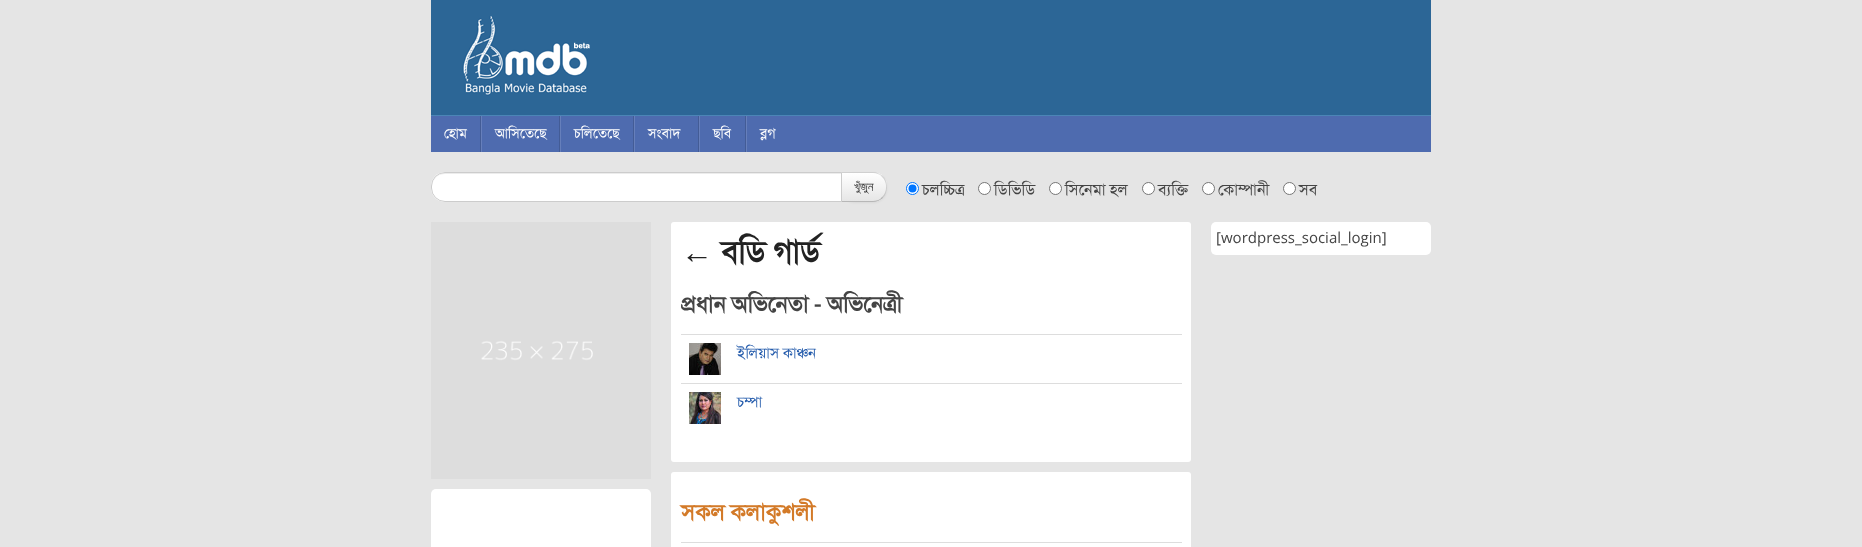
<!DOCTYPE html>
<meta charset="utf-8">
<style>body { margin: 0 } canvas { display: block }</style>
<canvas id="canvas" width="1862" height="547"></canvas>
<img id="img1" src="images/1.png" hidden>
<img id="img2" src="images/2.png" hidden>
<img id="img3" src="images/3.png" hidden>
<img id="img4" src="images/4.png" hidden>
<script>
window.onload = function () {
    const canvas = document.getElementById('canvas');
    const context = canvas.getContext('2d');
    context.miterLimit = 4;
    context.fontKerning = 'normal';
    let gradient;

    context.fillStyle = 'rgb(229, 229, 229)';
    context.fillRect(0, 0, 1862, 547);
    context.fillStyle = 'rgb(44, 102, 150)';
    context.fillRect(431, 0, 1000, 115);
    context.fillStyle = 'rgb(75, 133, 182)';
    context.fillRect(431, 115, 1000, 1);
    context.drawImage(document.getElementById('img1'), 462, 16, 128, 80);
    context.fillStyle = 'rgb(78, 107, 175)';
    context.fillRect(431, 116, 1000, 36);
    context.fillStyle = 'rgb(67, 92, 150)';
    context.fillRect(480, 116, 1, 36);
    context.fillRect(559, 116, 1, 36);
    context.fillStyle = 'rgb(102, 127, 187)';
    context.fillRect(481, 116, 1, 36);
    context.fillStyle = 'rgb(67, 92, 150)';
    context.fillRect(633, 116, 1, 36);
    context.fillStyle = 'rgb(102, 127, 187)';
    context.fillRect(560, 116, 1, 36);
    context.fillStyle = 'rgb(67, 92, 150)';
    context.fillRect(698, 116, 1, 36);
    context.fillStyle = 'rgb(102, 127, 187)';
    context.fillRect(634, 116, 1, 36);
    context.fillStyle = 'rgb(67, 92, 150)';
    context.fillRect(745, 116, 1, 36);
    context.fillStyle = 'rgb(102, 127, 187)';
    context.fillRect(699, 116, 1, 36);
    context.fillRect(746, 116, 1, 36);
    context.fillStyle = 'rgba(0, 0, 0, 0.05)';
    context.filter = 'blur(1px)';
    context.beginPath();
    context.roundRect(841, 173, 46, 30, 14);
    context.fill();
    context.filter = 'none';
    context.fillStyle = 'rgb(255, 255, 255)';
    context.beginPath();
    context.roundRect(431, 172, 410, 30, [14, 0, 0, 14]);
    context.fill();
    context.fillStyle = 'rgb(236, 236, 236)';
    context.beginPath();
    context.moveTo(445, 174);
    context.lineTo(841, 174);
    context.lineTo(841, 173);
    context.lineTo(445, 173);
    context.bezierCurveTo(438, 173, 432, 179, 432, 186);
    context.lineTo(432, 188);
    context.bezierCurveTo(432, 190, 432, 192, 433, 193);
    context.bezierCurveTo(430, 185, 434, 174, 445, 174);
    context.closePath();
    context.fill();
    context.fillStyle = 'rgb(245, 245, 245)';
    context.beginPath();
    context.roundRect(841, 172, 46, 30, [0, 14, 14, 0]);
    context.fill();
    context.save();
    context.beginPath();
    context.roundRect(841, 172, 46, 30, [0, 14, 14, 0]);
    context.clip();
    gradient = context.createLinearGradient(864, 173, 864, 201);
    gradient.addColorStop(0, 'rgb(255, 255, 255)');
    gradient.addColorStop(1, 'rgb(230, 230, 230)');
    context.fillStyle = gradient;
    context.fillRect(842, 173, 45, 28);
    context.restore();
    context.fillStyle = 'rgba(0, 0, 0, 0.15)';
    context.beginPath();
    context.moveTo(841, 172);
    context.lineTo(842, 173);
    context.lineTo(873, 173);
    context.bezierCurveTo(876, 173, 880, 174, 882, 177);
    context.lineTo(883, 176);
    context.bezierCurveTo(880, 174, 877, 172, 873, 172);
    context.closePath();
    context.fill();
    context.beginPath();
    context.moveTo(887, 188);
    context.bezierCurveTo(887, 183.5, 886.5, 179.5, 883, 176);
    context.lineTo(882, 177);
    context.bezierCurveTo(887.5, 182, 887.5, 192, 882, 197);
    context.lineTo(883, 198);
    context.bezierCurveTo(885.5, 195.5, 887, 192, 887, 188);
    context.closePath();
    context.fill();
    context.fillStyle = 'rgba(0, 0, 0, 0.25)';
    context.beginPath();
    context.moveTo(873, 202);
    context.bezierCurveTo(877, 202, 880, 200, 883, 198);
    context.lineTo(882, 197);
    context.bezierCurveTo(880, 200, 876, 201, 873, 201);
    context.lineTo(842, 201);
    context.lineTo(841, 202);
    context.closePath();
    context.fill();
    context.beginPath();
    context.roundRect(431.5, 172.5, 410, 29, [13.5, 0, 0, 13.5]);
    context.strokeStyle = 'rgb(204, 204, 204)';
    context.stroke();
    context.fillStyle = 'rgb(255, 255, 255)';
    context.beginPath();
    context.arc(912.5, 188.5, 6, 0, 2 * Math.PI);
    context.fill();
    context.strokeStyle = 'rgb(0, 117, 255)';
    context.stroke();
    context.fillStyle = 'rgb(0, 117, 255)';
    context.beginPath();
    context.arc(912.5, 188.5, 4, 0, 2 * Math.PI);
    context.fill();
    context.fillStyle = 'rgb(255, 255, 255)';
    context.beginPath();
    context.arc(984.5, 188.5, 6, 0, 2 * Math.PI);
    context.fill();
    context.strokeStyle = 'rgb(118, 118, 118)';
    context.stroke();
    context.beginPath();
    context.arc(1055.5, 188.5, 6, 0, 2 * Math.PI);
    context.fill();
    context.stroke();
    context.beginPath();
    context.arc(1148.5, 188.5, 6, 0, 2 * Math.PI);
    context.fill();
    context.stroke();
    context.beginPath();
    context.arc(1208.5, 188.5, 6, 0, 2 * Math.PI);
    context.fill();
    context.stroke();
    context.beginPath();
    context.arc(1289.5, 188.5, 6, 0, 2 * Math.PI);
    context.fill();
    context.stroke();
    context.drawImage(document.getElementById('img2'), 431, 222, 220, 257);
    context.beginPath();
    context.roundRect(431, 489, 220, 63, 5);
    context.fill();
    context.beginPath();
    context.roundRect(671, 222, 520, 240, 3);
    context.fill();
    context.fillStyle = 'rgb(221, 221, 221)';
    context.fillRect(681, 334, 501, 1);
    context.drawImage(document.getElementById('img3'), 689, 343, 32, 32);
    context.fillRect(681, 383, 501, 1);
    context.drawImage(document.getElementById('img4'), 689, 392, 32, 32);
    context.fillStyle = 'rgb(255, 255, 255)';
    context.beginPath();
    context.roundRect(671, 472, 520, 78, 3);
    context.fill();
    context.fillStyle = 'rgb(221, 221, 221)';
    context.fillRect(681, 542, 501, 1);
    context.fillStyle = 'rgb(255, 255, 255)';
    context.beginPath();
    context.roundRect(1211, 222, 220, 33, 5);
    context.fill();
    context.font = '14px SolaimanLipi';
    context.fillText('হোম', 444, 138);
    context.fillText('আসিতেছে', 495, 138);
    context.fillText('চলিতেছে', 574, 138);
    context.fillText('সংবাদ', 648, 138);
    context.fillText('ছবি', 713, 138);
    context.fillText('ব্লগ', 760, 138);
    context.font = '13px FreeSans';
    context.fillStyle = 'rgb(51, 51, 51)';
    context.fillText('খুঁজুন', 854, 191);
    context.font = '16px SolaimanLipi';
    context.fillStyle = 'rgb(68, 68, 68)';
    context.fillText('চলচ্চিত্র', 922, 195);
    context.fillText('ডিভিডি', 994, 195);
    context.fillText('সিনেমা হল', 1065, 195);
    context.fillText('ব্যক্তি', 1158, 195);
    context.fillText('কোম্পানী', 1218, 195);
    context.fillText('সব', 1299, 195);
    context.font = 'bold 32px Liberation Sans';
    context.fillStyle = 'rgb(34, 34, 34)';
    context.fillText('←', 681, 263);
    context.font = 'bold 32px SolaimanLipi';
    context.fillText('বডি গার্ড', 721, 263);
    context.font = 'bold 22.75px SolaimanLipi';
    context.fillStyle = 'rgb(68, 68, 68)';
    context.fillText('প্রধান অভিনেতা - অভিনেত্রী', 681, 312);
    context.font = '15px SolaimanLipi';
    context.fillStyle = 'rgb(37, 92, 172)';
    context.fillText('ইলিয়াস কাঞ্চন', 737, 358);
    context.fillText('চম্পা', 737, 407);
    context.font = 'bold 22.75px SolaimanLipi';
    context.fillStyle = 'rgb(211, 122, 40)';
    context.fillText('সকল কলাকুশলী', 681, 520);
    context.font = '15px SolaimanLipi';
    context.fillStyle = 'rgb(68, 68, 68)';
    context.fillText('[wordpress_social_login]', 1216, 243);
};
</script>
